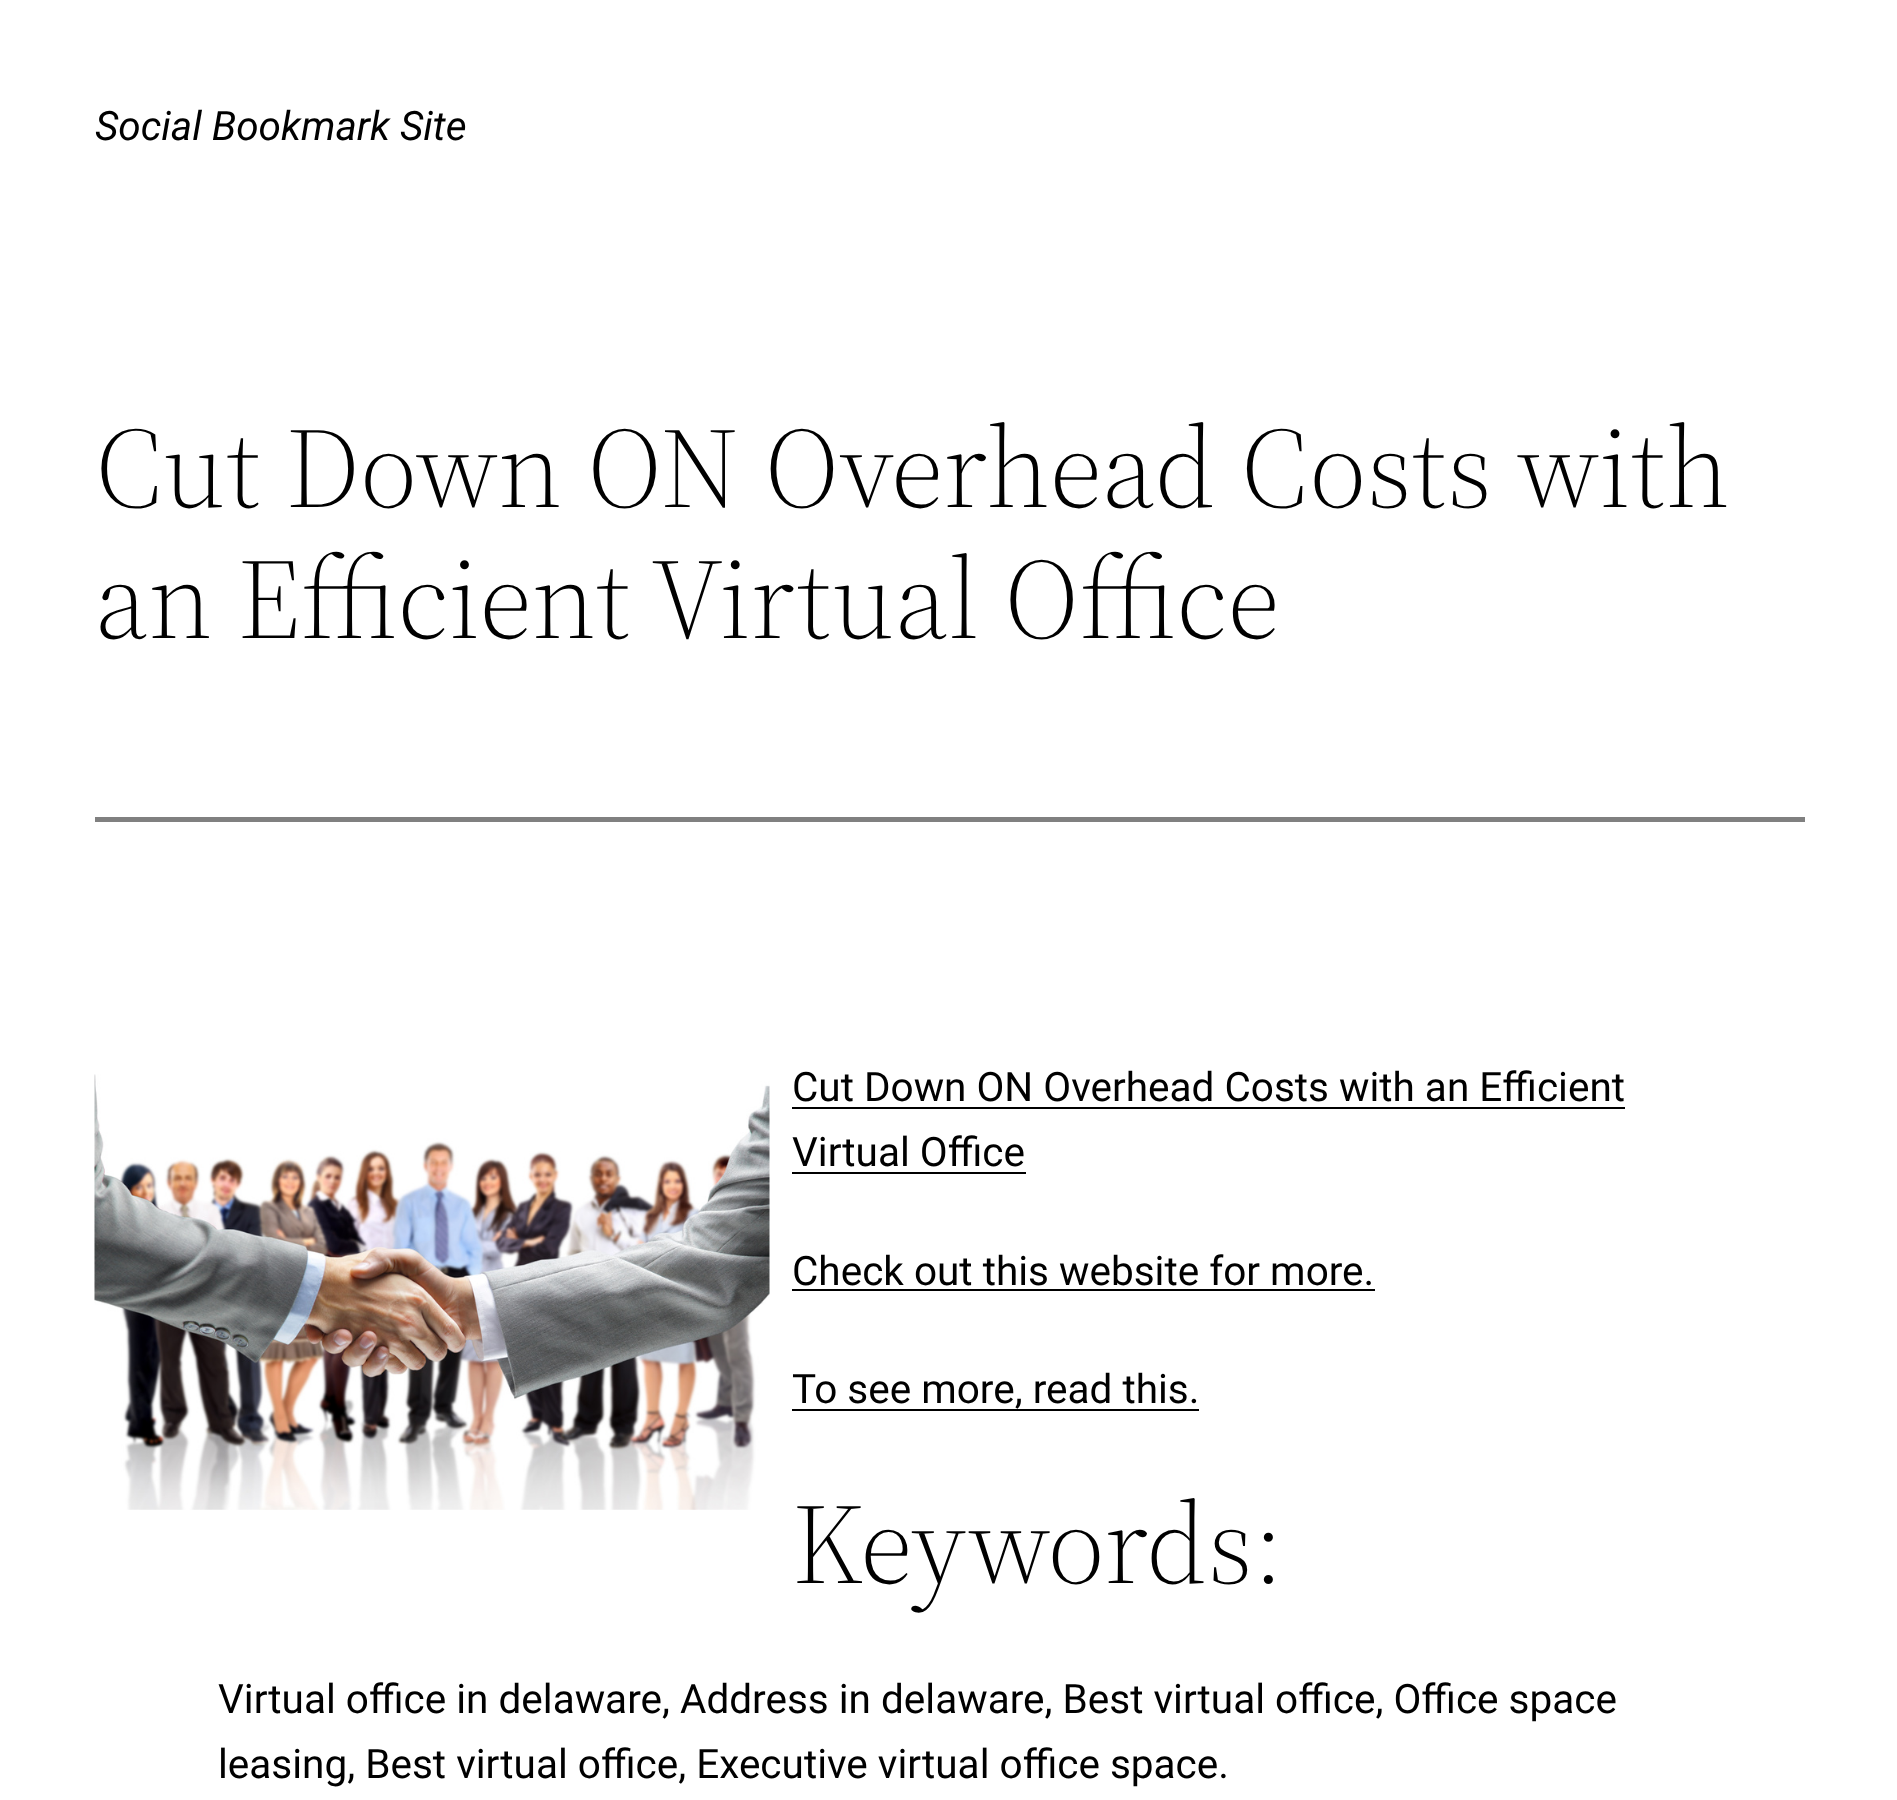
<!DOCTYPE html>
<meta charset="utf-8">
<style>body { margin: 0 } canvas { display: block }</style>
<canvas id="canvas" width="1897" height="1800"></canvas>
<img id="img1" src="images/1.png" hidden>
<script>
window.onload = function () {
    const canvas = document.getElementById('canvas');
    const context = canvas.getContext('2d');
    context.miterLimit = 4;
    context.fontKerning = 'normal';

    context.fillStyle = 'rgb(255, 255, 255)';
    context.fillRect(0, 0, 1897, 1800);
    context.fillStyle = 'rgb(128, 128, 128)';
    context.fillRect(95, 817, 1710, 5);
    context.drawImage(document.getElementById('img1'), 94, 1074, 676, 436);
    context.fillStyle = 'rgb(0, 0, 0)';
    context.fillRect(792, 1107, 833, 2);
    context.fillRect(792, 1172, 234, 2);
    context.fillRect(792, 1289, 583, 2);
    context.fillRect(792, 1409, 407, 2);
    context.font = 'italic 40.5px Roboto';
    context.fillText('Social Bookmark Site', 95, 140);
    context.font = '300 114px "Source Serif 4"';
    context.fillText('Cut Down ON Overhead Costs with', 95, 507);
    context.fillText('an Efficient Virtual Office', 95, 638);
    context.font = '40.5px Roboto';
    context.fillText('Cut Down ON Overhead Costs with an Efficient', 792, 1101);
    context.fillText('Virtual Office', 792, 1166);
    context.fillText('Check out this website for more.', 792, 1285);
    context.fillText('To see more, read this.', 792, 1403);
    context.font = '300 114px "Source Serif 4"';
    context.fillText('Keywords:', 792, 1583);
    context.font = '40.5px Roboto';
    context.fillText('Virtual office in delaware, Address in delaware, Best virtual office, Office space', 218, 1713);
    context.fillText('leasing, Best virtual office, Executive virtual office space.', 218, 1778);
};
</script>
